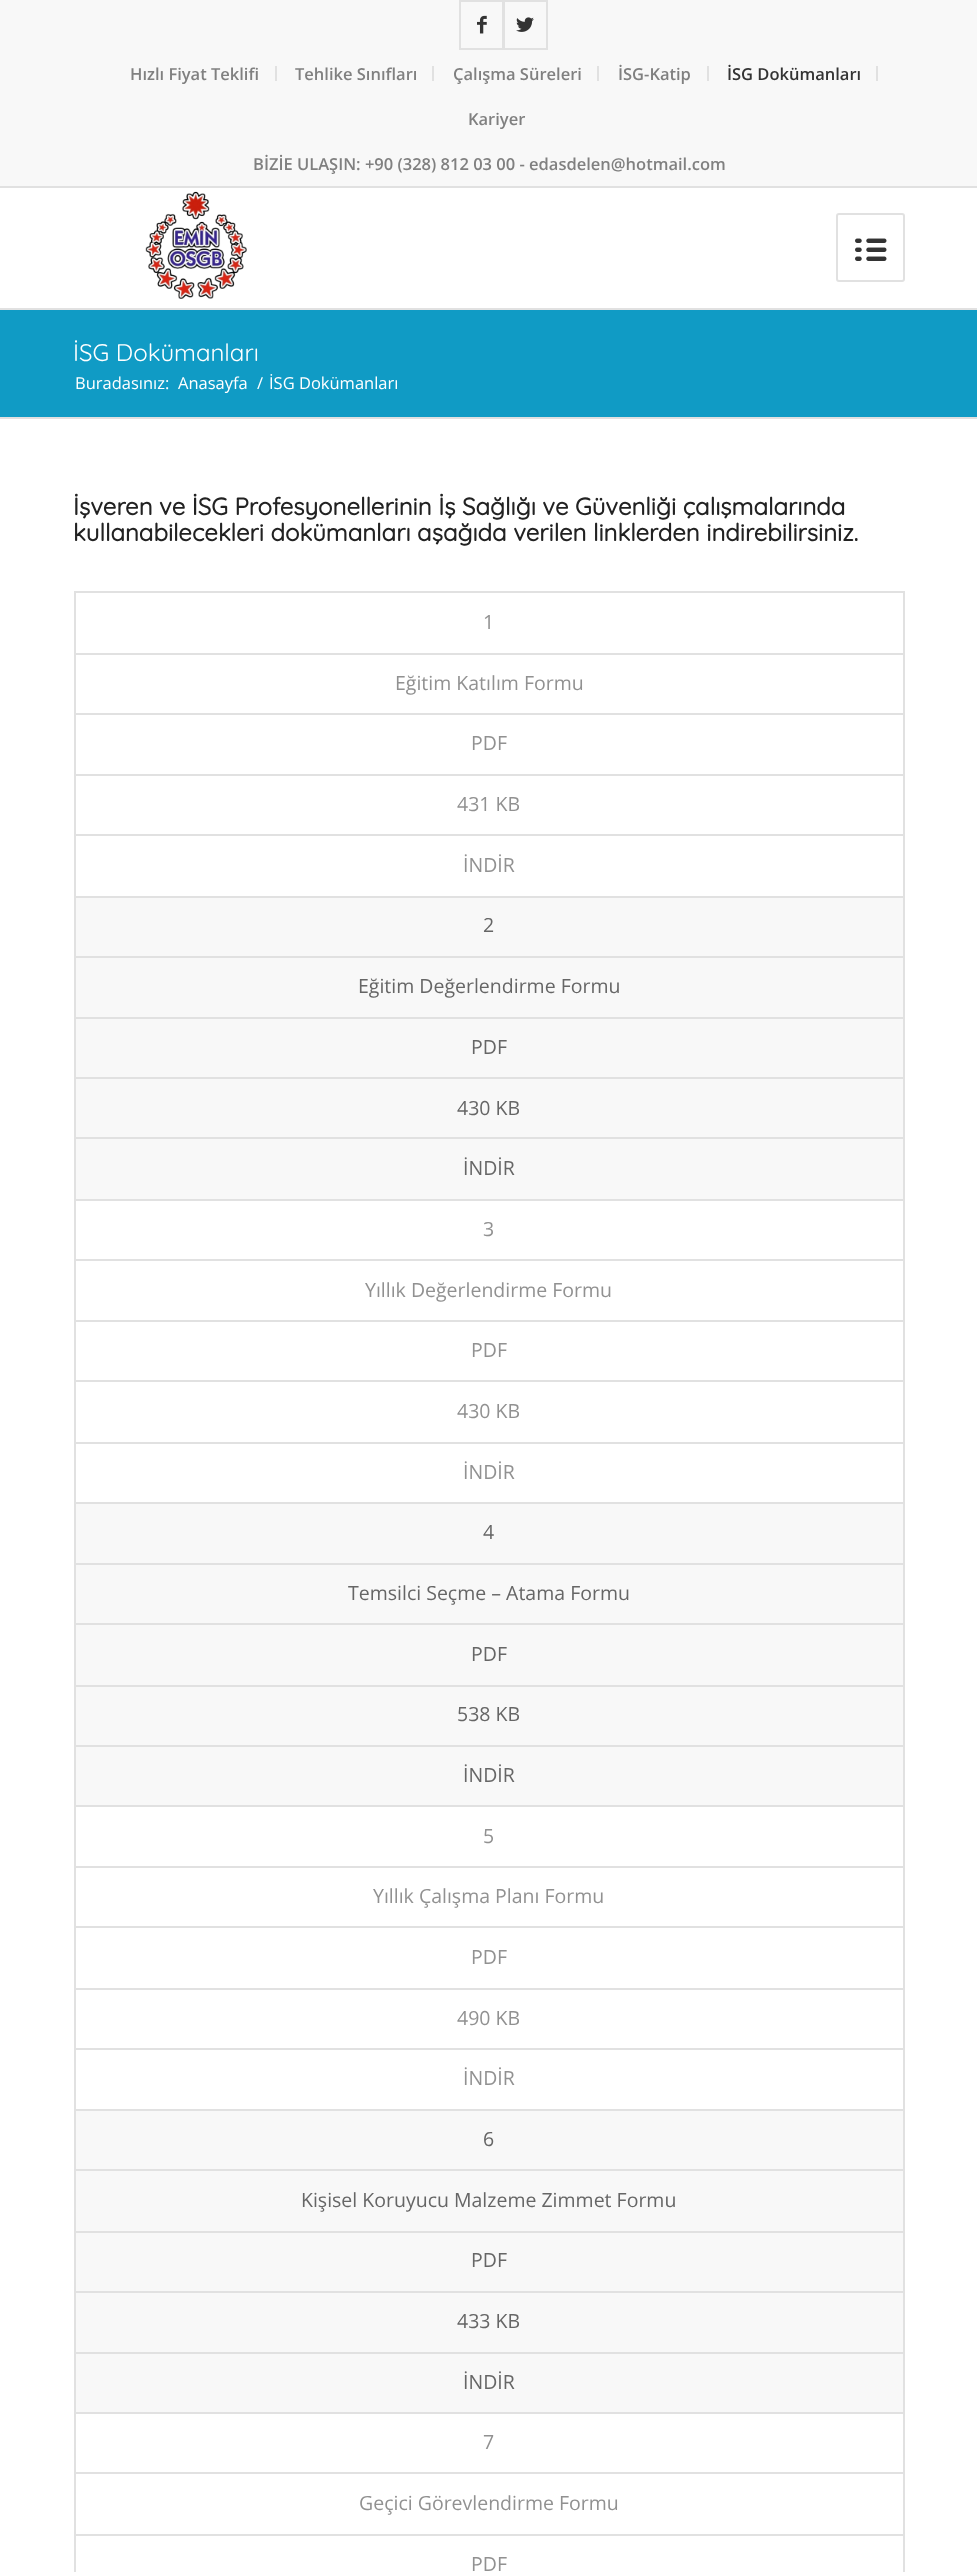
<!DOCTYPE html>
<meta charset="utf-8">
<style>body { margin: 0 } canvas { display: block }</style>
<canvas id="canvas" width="977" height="2572"></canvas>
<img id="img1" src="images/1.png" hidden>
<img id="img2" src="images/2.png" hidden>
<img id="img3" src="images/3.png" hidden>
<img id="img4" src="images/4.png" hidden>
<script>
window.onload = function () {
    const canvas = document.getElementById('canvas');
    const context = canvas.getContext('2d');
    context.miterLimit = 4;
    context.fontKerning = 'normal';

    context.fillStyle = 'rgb(255, 255, 255)';
    context.fillRect(0, 0, 977, 2572);
    context.fillStyle = 'rgb(248, 248, 248)';
    context.fillRect(0, 0, 977, 186);
    context.fillStyle = 'rgb(225, 225, 225)';
    context.fillRect(0, 186, 977, 2);
    context.strokeStyle = 'rgb(225, 225, 225)';
    context.lineWidth = 2;
    context.strokeRect(460, 1, 43, 48);
    context.drawImage(document.getElementById('img1'), 477, 15, 10, 19);
    context.strokeRect(504, 1, 43, 48);
    context.drawImage(document.getElementById('img2'), 516, 17, 18, 15);
    context.fillRect(275, 66, 2, 15);
    context.fillRect(432, 66, 2, 15);
    context.fillRect(597, 66, 2, 15);
    context.fillRect(707, 66, 2, 15);
    context.fillRect(876, 66, 2, 15);
    context.fillRect(0, 308, 977, 2);
    context.drawImage(document.getElementById('img3'), 145, 191, 102, 108);
    context.beginPath();
    context.roundRect(837, 214, 67, 67, 2);
    context.stroke();
    context.drawImage(document.getElementById('img4'), 855, 238, 32, 23);
    context.fillStyle = 'rgb(16, 155, 197)';
    context.fillRect(0, 310, 977, 107);
    context.fillStyle = 'rgb(225, 225, 225)';
    context.fillRect(0, 417, 977, 2);
    context.fillStyle = 'rgb(248, 248, 248)';
    context.fillRect(76, 898, 827, 1514);
    context.fillStyle = 'rgb(225, 225, 225)';
    context.fillRect(74, 591, 831, 2);
    context.fillRect(903, 591, 2, 1981);
    context.fillRect(74, 591, 2, 1981);
    context.fillRect(75, 653, 828, 2);
    context.fillRect(75, 713, 828, 2);
    context.fillRect(75, 774, 828, 2);
    context.fillRect(75, 834, 828, 2);
    context.fillRect(75, 896, 828, 2);
    context.fillRect(75, 956, 828, 2);
    context.fillRect(75, 1017, 828, 2);
    context.fillRect(75, 1077, 828, 2);
    context.fillRect(75, 1137, 828, 2);
    context.fillRect(75, 1199, 828, 2);
    context.fillStyle = 'rgb(255, 255, 255)';
    context.fillRect(76, 1201, 827, 301);
    context.fillStyle = 'rgb(225, 225, 225)';
    context.fillRect(75, 1259, 828, 2);
    context.fillRect(75, 1320, 828, 2);
    context.fillRect(75, 1380, 828, 2);
    context.fillRect(75, 1442, 828, 2);
    context.fillRect(75, 1502, 828, 2);
    context.fillRect(75, 1563, 828, 2);
    context.fillRect(75, 1623, 828, 2);
    context.fillRect(75, 1685, 828, 2);
    context.fillRect(75, 1745, 828, 2);
    context.fillRect(75, 1805, 828, 2);
    context.fillStyle = 'rgb(255, 255, 255)';
    context.fillRect(76, 1807, 827, 302);
    context.fillStyle = 'rgb(225, 225, 225)';
    context.fillRect(75, 1866, 828, 2);
    context.fillRect(75, 1926, 828, 2);
    context.fillRect(75, 1988, 828, 2);
    context.fillRect(75, 2048, 828, 2);
    context.fillRect(75, 2109, 828, 2);
    context.fillRect(75, 2169, 828, 2);
    context.fillRect(75, 2231, 828, 2);
    context.fillRect(75, 2291, 828, 2);
    context.fillRect(75, 2352, 828, 2);
    context.fillRect(75, 2412, 828, 2);
    context.fillRect(75, 2472, 828, 2);
    context.fillRect(75, 2534, 828, 2);
    context.font = '600 16.5px Open Sans';
    context.fillStyle = 'rgb(128, 128, 128)';
    context.fillText('Hızlı Fiyat Teklifi', 130, 80);
    context.fillText('Tehlike Sınıfları', 295, 80);
    context.fillText('Çalışma Süreleri', 453, 80);
    context.fillText('İSG-Katip', 618, 80);
    context.fillStyle = 'rgb(51, 51, 51)';
    context.fillText('İSG Dokümanları', 727, 80);
    context.fillStyle = 'rgb(128, 128, 128)';
    context.fillText('Kariyer', 468, 125);
    context.fillText('BİZİE ULAŞIN: +90 (328) 812 03 00 - edasdelen@hotmail.com', 253, 170);
    context.font = '300 24px Quicksand';
    context.fillStyle = 'rgb(255, 255, 255)';
    context.fillText('İSG Dokümanları', 73, 361);
    context.font = '16.5px Open Sans';
    context.fillText('Buradasınız:', 75, 389);
    context.fillText('Anasayfa', 178, 389);
    context.fillText('/', 257, 389);
    context.fillText('İSG Dokümanları', 269, 389);
    context.font = 'bold 24px Quicksand';
    context.fillStyle = 'rgb(34, 34, 34)';
    context.fillText('İşveren ve İSG Profesyonellerinin İş Sağlığı ve Güvenliği çalışmalarında', 73, 515);
    context.fillText('kullanabilecekleri dokümanları aşağıda verilen linklerden indirebilirsiniz.', 73, 541);
    context.font = '19.5px Open Sans';
    context.fillStyle = 'rgb(145, 145, 145)';
    context.fillText('1', 483, 629);
    context.fillText('Eğitim Katılım Formu', 395, 690);
    context.fillText('PDF', 471, 750);
    context.fillText('431 KB', 457, 811);
    context.fillText('İNDİR', 463, 872);
    context.fillStyle = 'rgb(102, 102, 102)';
    context.fillText('2', 483, 932);
    context.fillText('Eğitim Değerlendirme Formu', 358, 993);
    context.fillText('PDF', 471, 1054);
    context.fillText('430 KB', 457, 1115);
    context.fillText('İNDİR', 463, 1175);
    context.fillStyle = 'rgb(145, 145, 145)';
    context.fillText('3', 483, 1236);
    context.fillText('Yıllık Değerlendirme Formu', 365, 1297);
    context.fillText('PDF', 471, 1357);
    context.fillText('430 KB', 457, 1418);
    context.fillText('İNDİR', 463, 1479);
    context.fillStyle = 'rgb(102, 102, 102)';
    context.fillText('4', 483, 1539);
    context.fillText('Temsilci Seçme – Atama Formu', 348, 1600);
    context.fillText('PDF', 471, 1661);
    context.fillText('538 KB', 457, 1721);
    context.fillText('İNDİR', 463, 1782);
    context.fillStyle = 'rgb(145, 145, 145)';
    context.fillText('5', 483, 1843);
    context.fillText('Yıllık Çalışma Planı Formu', 373, 1903);
    context.fillText('PDF', 471, 1964);
    context.fillText('490 KB', 457, 2025);
    context.fillText('İNDİR', 463, 2085);
    context.fillStyle = 'rgb(102, 102, 102)';
    context.fillText('6', 483, 2146);
    context.fillText('Kişisel Koruyucu Malzeme Zimmet Formu', 301, 2207);
    context.fillText('PDF', 471, 2267);
    context.fillText('433 KB', 457, 2328);
    context.fillText('İNDİR', 463, 2389);
    context.fillStyle = 'rgb(145, 145, 145)';
    context.fillText('7', 483, 2449);
    context.fillText('Geçici Görevlendirme Formu', 359, 2510);
    context.fillText('PDF', 471, 2571);
};
</script>
